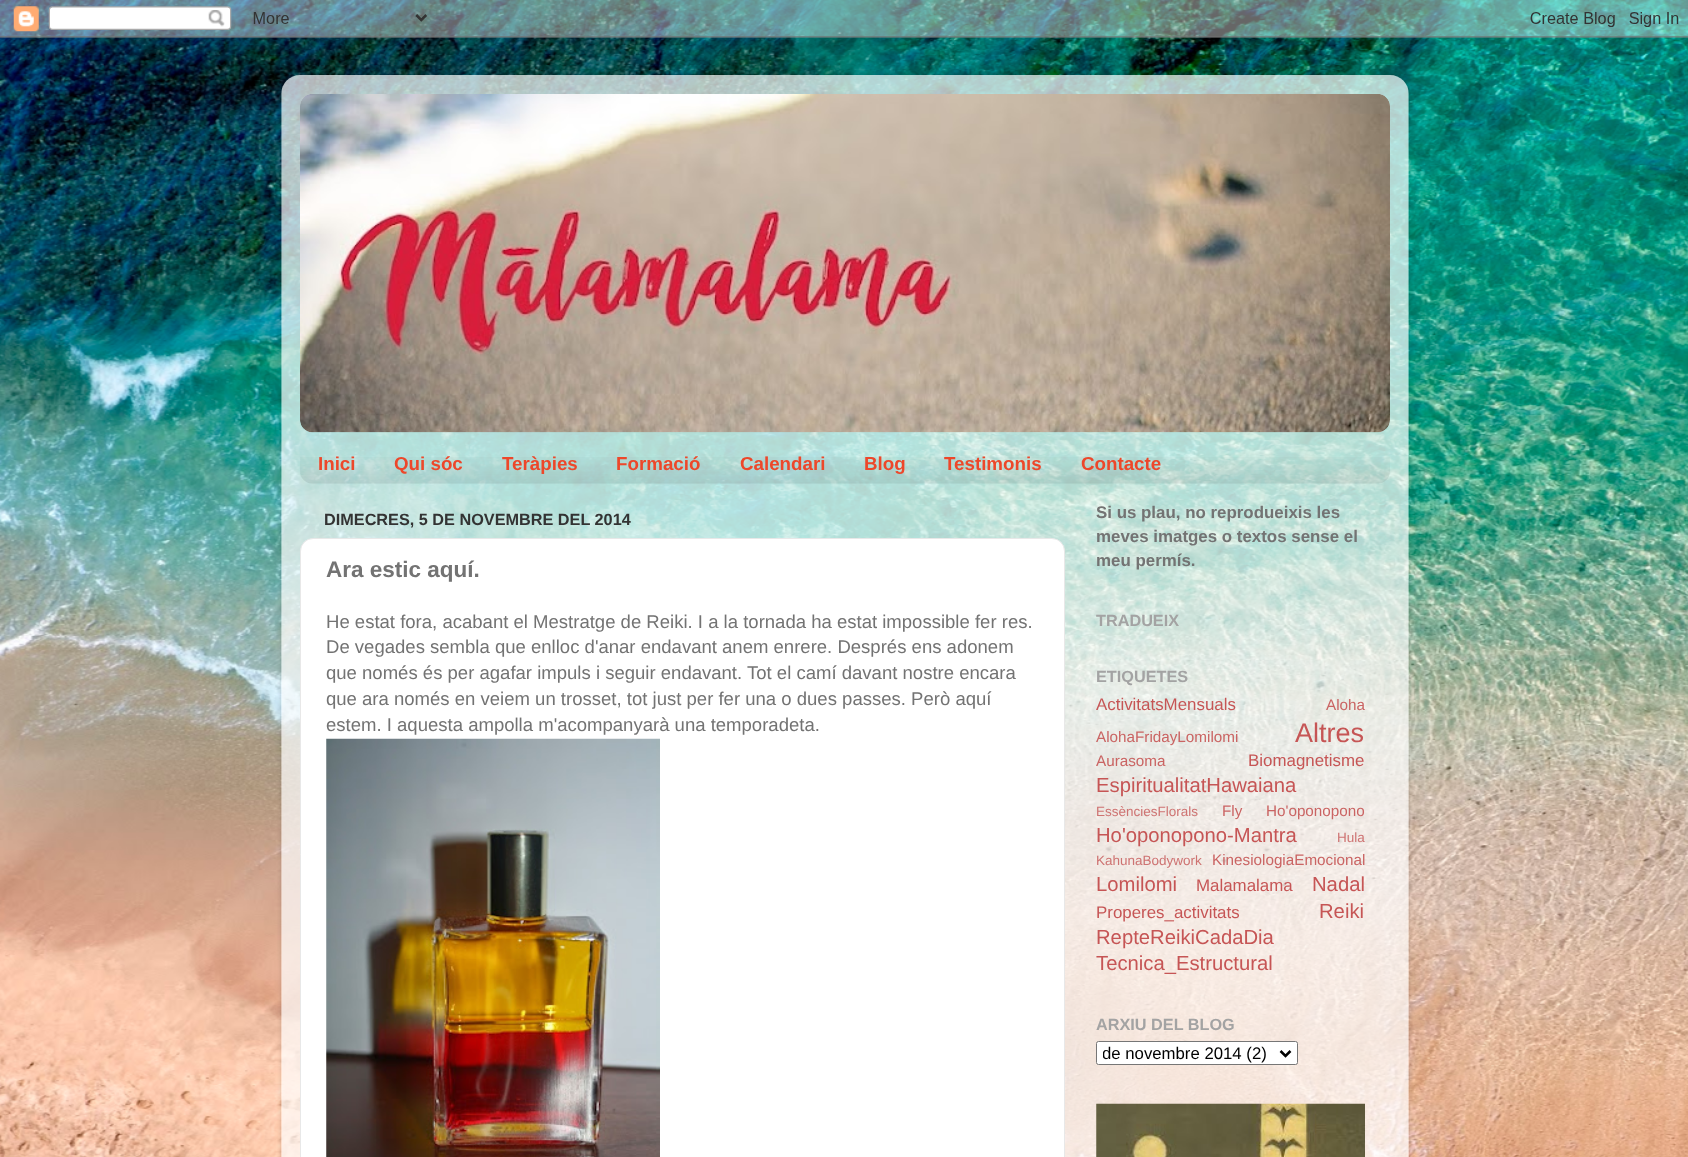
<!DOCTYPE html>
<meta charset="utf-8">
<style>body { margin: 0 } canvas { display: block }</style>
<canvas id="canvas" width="1688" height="1157"></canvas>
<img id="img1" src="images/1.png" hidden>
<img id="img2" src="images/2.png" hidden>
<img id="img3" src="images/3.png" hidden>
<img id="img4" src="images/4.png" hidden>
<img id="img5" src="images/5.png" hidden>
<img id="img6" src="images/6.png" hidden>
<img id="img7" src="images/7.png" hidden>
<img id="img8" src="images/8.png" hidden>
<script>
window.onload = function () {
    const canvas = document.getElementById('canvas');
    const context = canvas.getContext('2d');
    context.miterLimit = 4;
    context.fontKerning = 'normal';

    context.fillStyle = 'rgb(255, 255, 255)';
    context.fillRect(0, 0, 1688, 1157);
    context.drawImage(document.getElementById('img1'), 0, 0, 1688, 1157);
    context.drawImage(document.getElementById('img2'), 0, 0, 1688, 38);
    context.save();
    context.beginPath();
    context.moveTo(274, 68);
    context.lineTo(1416, 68);
    context.lineTo(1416, 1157);
    context.lineTo(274, 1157);
    context.closePath();
    context.moveTo(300, 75);
    context.lineTo(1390, 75);
    context.bezierCurveTo(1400.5, 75, 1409, 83.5, 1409, 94);
    context.lineTo(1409, 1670);
    context.bezierCurveTo(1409, 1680.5, 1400.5, 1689, 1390, 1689);
    context.lineTo(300, 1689);
    context.bezierCurveTo(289.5, 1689, 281, 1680.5, 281, 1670);
    context.lineTo(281, 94);
    context.bezierCurveTo(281, 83.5, 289.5, 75, 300, 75);
    context.closePath();
    context.clip('evenodd');
    context.fillStyle = 'rgba(0, 0, 0, 0.15)';
    context.filter = 'blur(2px)';
    context.beginPath();
    context.roundRect(281, 75, 1128, 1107, 19);
    context.fill();
    context.filter = 'none';
    context.restore();
    context.drawImage(document.getElementById('img3'), 281, 75, 1128, 1082);
    context.drawImage(document.getElementById('img4'), 300, 94, 1090, 12);
    context.drawImage(document.getElementById('img5'), 300, 94, 1090, 339);
    context.drawImage(document.getElementById('img6'), 300, 457, 1090, 27);
    context.beginPath();
    context.roundRect(300.5, 538.5, 764, 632, 12.5);
    context.fill();
    context.strokeStyle = 'rgb(232, 232, 232)';
    context.stroke();
    context.drawImage(document.getElementById('img7'), 326, 738, 334, 419);
    context.beginPath();
    context.roundRect(1096.5, 1041.5, 201, 23, 2);
    context.fill();
    context.strokeStyle = 'rgb(118, 118, 118)';
    context.stroke();
    context.beginPath();
    context.moveTo(1280.5, 1051);
    context.lineTo(1285.5, 1056);
    context.lineTo(1290.5, 1051);
    context.strokeStyle = 'rgb(0, 0, 0)';
    context.lineWidth = 2.5;
    context.stroke();
    context.drawImage(document.getElementById('img8'), 1096, 1103, 269, 54);
    context.font = 'bold 18.75px Liberation Sans';
    context.fillStyle = 'rgb(237, 71, 42)';
    context.fillText('Inici', 318, 470);
    context.fillText('Qui sóc', 394, 470);
    context.fillText('Teràpies', 502, 470);
    context.fillText('Formació', 616, 470);
    context.fillText('Calendari', 740, 470);
    context.fillText('Blog', 864, 470);
    context.fillText('Testimonis', 944, 470);
    context.fillText('Contacte', 1081, 470);
    context.font = 'bold 16.25px Liberation Sans';
    context.fillStyle = 'rgb(51, 51, 51)';
    context.fillText('DIMECRES, 5 DE NOVEMBRE DEL 2014', 324, 525);
    context.font = 'bold 22.5px Liberation Sans';
    context.fillStyle = 'rgb(115, 115, 115)';
    context.fillText('Ara estic aquí.', 326, 577);
    context.font = '18.55px Liberation Sans';
    context.fillText('He estat fora, acabant el Mestratge de Reiki. I a la tornada ha estat impossible fer res.', 326, 628);
    context.fillText('De vegades sembla que enlloc d\'anar endavant anem enrere. Després ens adonem', 326, 653);
    context.fillText('que només és per agafar impuls i seguir endavant. Tot el camí davant nostre encara', 326, 679);
    context.fillText('que ara només en veiem un trosset, tot just per fer una o dues passes. Però aquí', 326, 705);
    context.fillText('estem. I aquesta ampolla m\'acompanyarà una temporadeta.', 326, 731);
    context.font = 'bold 16.9px Liberation Sans';
    context.fillText('Si us plau, no reprodueixis les', 1096, 518);
    context.fillText('meves imatges o textos sense el', 1096, 542);
    context.fillText('meu permís.', 1096, 566);
    context.font = 'bold 16.25px Liberation Sans';
    context.fillStyle = 'rgb(163, 163, 163)';
    context.fillText('TRADUEIX', 1096, 626);
    context.fillText('ETIQUETES', 1096, 682);
    context.font = '16.9px Liberation Sans';
    context.fillStyle = 'rgb(198, 85, 85)';
    context.fillText('ActivitatsMensuals', 1096, 710);
    context.font = '15.25px Liberation Sans';
    context.fillStyle = 'rgb(202, 100, 99)';
    context.fillText('Aloha', 1326, 710);
    context.fillText('AlohaFridayLomilomi', 1096, 742);
    context.font = '27px Liberation Sans';
    context.fillStyle = 'rgb(198, 85, 85)';
    context.fillText('Altres', 1295, 742);
    context.font = '15.25px Liberation Sans';
    context.fillStyle = 'rgb(202, 100, 99)';
    context.fillText('Aurasoma', 1096, 766);
    context.font = '16.9px Liberation Sans';
    context.fillStyle = 'rgb(198, 85, 85)';
    context.fillText('Biomagnetisme', 1248, 766);
    context.font = '20.25px Liberation Sans';
    context.fillText('EspiritualitatHawaiana', 1096, 792);
    context.font = '13.5px Liberation Sans';
    context.fillStyle = 'rgb(206, 115, 114)';
    context.fillText('EssènciesFlorals', 1096, 816);
    context.font = '15.25px Liberation Sans';
    context.fillStyle = 'rgb(202, 100, 99)';
    context.fillText('Fly', 1222, 816);
    context.fillText('Ho\'oponopono', 1266, 816);
    context.font = '20.25px Liberation Sans';
    context.fillStyle = 'rgb(198, 85, 85)';
    context.fillText('Ho\'oponopono-Mantra', 1096, 842);
    context.font = '13.5px Liberation Sans';
    context.fillStyle = 'rgb(206, 115, 114)';
    context.fillText('Hula', 1337, 842);
    context.fillText('KahunaBodywork', 1096, 865);
    context.font = '15.25px Liberation Sans';
    context.fillStyle = 'rgb(202, 100, 99)';
    context.fillText('KinesiologiaEmocional', 1212, 865);
    context.font = '20.25px Liberation Sans';
    context.fillStyle = 'rgb(198, 85, 85)';
    context.fillText('Lomilomi', 1096, 891);
    context.font = '16.9px Liberation Sans';
    context.fillText('Malamalama', 1196, 891);
    context.font = '20.25px Liberation Sans';
    context.fillText('Nadal', 1312, 891);
    context.font = '16.9px Liberation Sans';
    context.fillText('Properes_activitats', 1096, 918);
    context.font = '20.25px Liberation Sans';
    context.fillText('Reiki', 1319, 918);
    context.fillText('RepteReikiCadaDia', 1096, 944);
    context.fillText('Tecnica_Estructural', 1096, 970);
    context.font = 'bold 16.25px Liberation Sans';
    context.fillStyle = 'rgb(163, 163, 163)';
    context.fillText('ARXIU DEL BLOG', 1096, 1030);
    context.save();
    context.beginPath();
    context.rect(1103, 1043, 173, 21);
    context.clip();
    context.font = '16.75px Liberation Sans';
    context.fillStyle = 'rgb(0, 0, 0)';
    context.fillText('de novembre 2014 (2)', 1102, 1059);
    context.restore();
};
</script>
